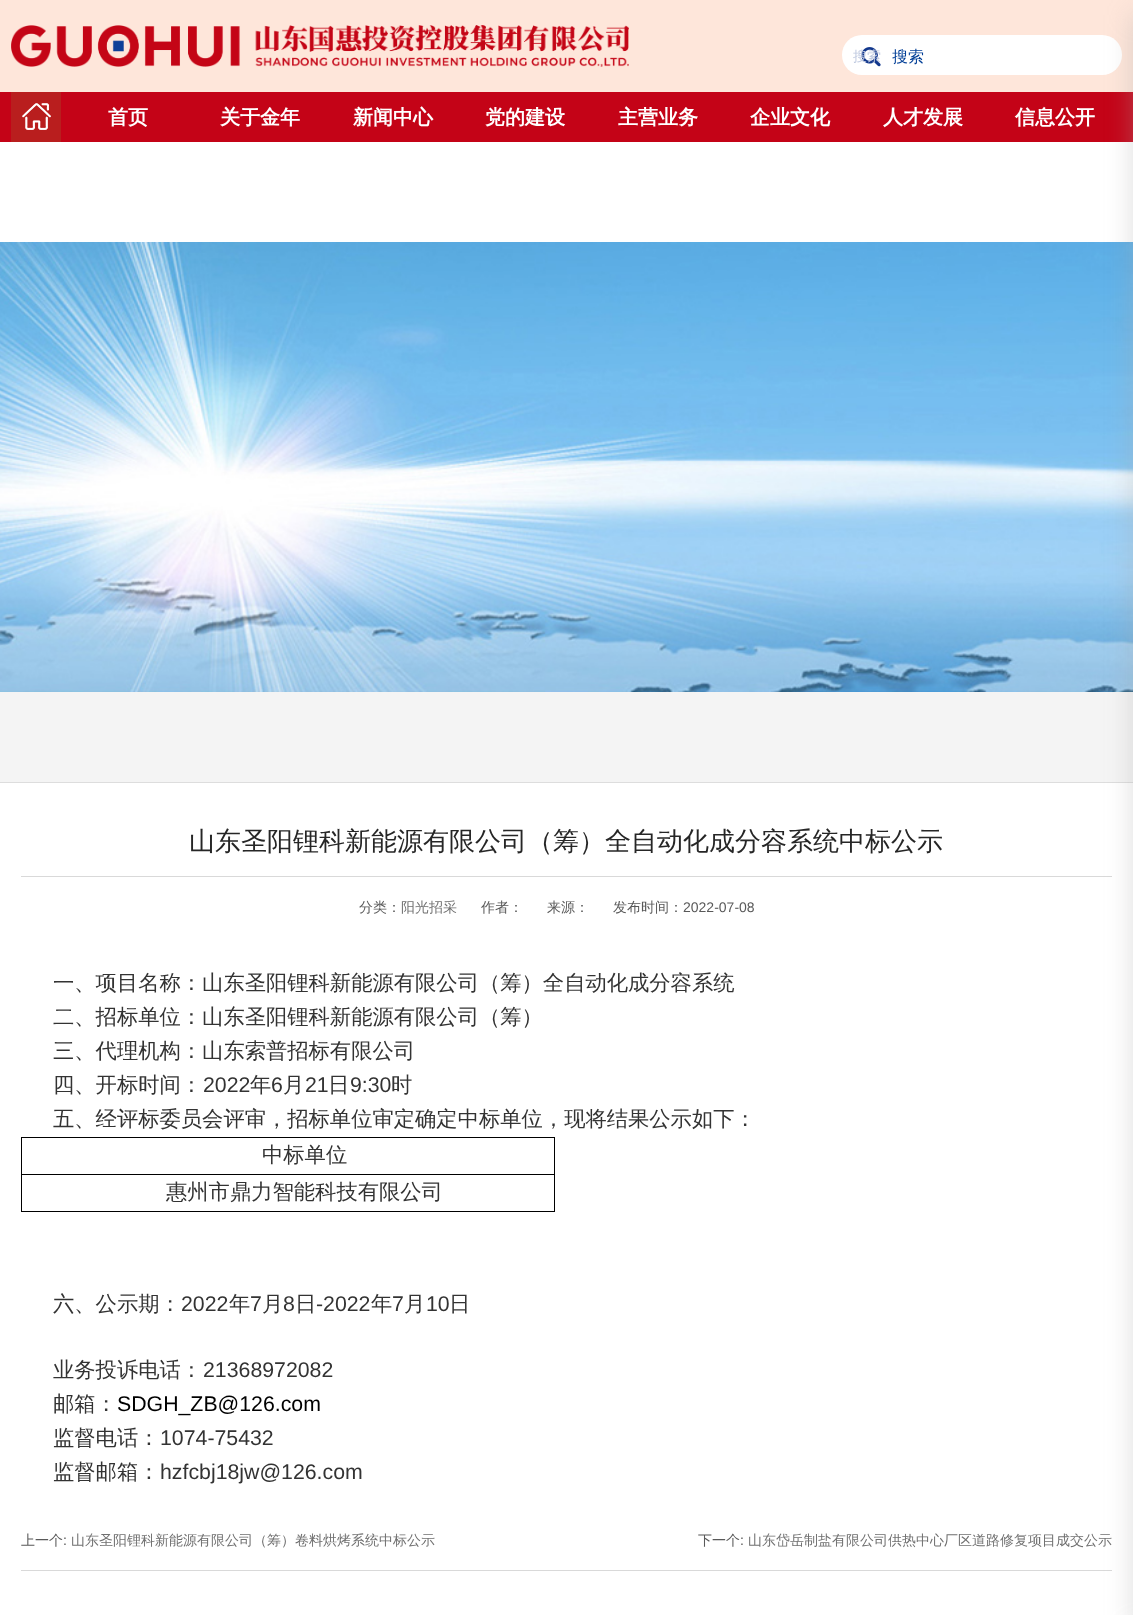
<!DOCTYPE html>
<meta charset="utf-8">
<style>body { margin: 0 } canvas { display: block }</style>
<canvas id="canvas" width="1133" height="1615"></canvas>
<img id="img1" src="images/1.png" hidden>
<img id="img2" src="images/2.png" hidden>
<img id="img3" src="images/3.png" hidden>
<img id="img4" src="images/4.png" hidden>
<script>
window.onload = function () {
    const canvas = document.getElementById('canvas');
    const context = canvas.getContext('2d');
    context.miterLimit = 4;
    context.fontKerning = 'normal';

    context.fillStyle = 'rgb(255, 255, 255)';
    context.fillRect(0, 0, 1133, 1615);
    context.fillStyle = 'rgb(254, 230, 218)';
    context.fillRect(0, 0, 1133, 92);
    context.drawImage(document.getElementById('img1'), 11, 25, 618, 42);
    context.fillStyle = 'rgb(255, 255, 255)';
    context.beginPath();
    context.roundRect(842, 35, 280, 40, 20);
    context.fill();
    context.drawImage(document.getElementById('img2'), 861, 47, 20, 20);
    context.fillStyle = 'rgb(196, 3, 23)';
    context.fillRect(0, 92, 1133, 50);
    context.fillStyle = 'rgb(185, 30, 30)';
    context.fillRect(11, 92, 50, 50);
    context.drawImage(document.getElementById('img3'), 22, 103, 29, 27);
    context.drawImage(document.getElementById('img4'), 0, 242, 1133, 450);
    context.fillStyle = 'rgb(244, 244, 244)';
    context.fillRect(0, 692, 1133, 90);
    context.fillStyle = 'rgb(221, 221, 221)';
    context.fillRect(0, 782, 1133, 1);
    context.fillStyle = 'rgb(217, 217, 217)';
    context.fillRect(21, 876, 1091, 1);
    context.fillRect(21, 1570, 1091, 1);
    context.fillStyle = 'rgba(167, 165, 165, 0.38)';
    context.filter = 'blur(13.5px)';
    context.beginPath();
    context.rect(1133, 15, 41, 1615);
    context.fill();
    context.filter = 'none';
    context.fillStyle = 'rgb(0, 0, 0)';
    context.fillRect(21, 1137, 534, 1);
    context.fillRect(554, 1137, 1, 75);
    context.fillRect(21, 1211, 534, 1);
    context.fillRect(21, 1137, 1, 75);
    context.fillRect(21, 1174, 534, 1);
    context.font = '500 14px WenQuanYi Zen Hei';
    context.fillStyle = 'rgb(192, 202, 224)';
    context.fillText('搜索', 853, 61);
    context.save();
    context.beginPath();
    context.roundRect(892, 35, 230, 40, 20);
    context.clip();
    context.font = '500 16px WenQuanYi Zen Hei';
    context.fillStyle = 'rgb(2, 63, 151)';
    context.fillText('搜索', 892, 62);
    context.restore();
    context.font = 'bold 20px WenQuanYi Zen Hei';
    context.fillStyle = 'rgb(255, 255, 255)';
    context.fillText('首页', 108, 124);
    context.fillText('关于金年', 220, 124);
    context.fillText('新闻中心', 353, 124);
    context.fillText('党的建设', 485, 124);
    context.fillText('主营业务', 618, 124);
    context.fillText('企业文化', 750, 124);
    context.fillText('人才发展', 883, 124);
    context.fillText('信息公开', 1015, 124);
    context.font = '500 26px WenQuanYi Zen Hei';
    context.fillStyle = 'rgb(38, 38, 38)';
    context.fillText('山东圣阳锂科新能源有限公司（筹）全自动化成分容系统中标公示', 189, 850);
    context.font = '500 14px WenQuanYi Zen Hei';
    context.fillStyle = 'rgb(89, 89, 89)';
    context.fillText('分类：', 359, 912);
    context.fillStyle = 'rgb(112, 112, 112)';
    context.fillText('阳光招采', 401, 912);
    context.fillStyle = 'rgb(89, 89, 89)';
    context.fillText('作者：', 481, 912);
    context.fillText('来源：', 547, 912);
    context.fillText('发布时间：', 613, 912);
    context.font = '14px Liberation Sans';
    context.fillText('2022-07-08', 683, 912);
    context.font = '500 21.3px WenQuanYi Zen Hei';
    context.fillStyle = 'rgb(51, 51, 51)';
    context.fillText('一、项目名称：山东圣阳锂科新能源有限公司（筹）全自动化成分容系统', 53, 990);
    context.fillText('二、招标单位：山东圣阳锂科新能源有限公司（筹）', 53, 1024);
    context.fillText('三、代理机构：山东索普招标有限公司', 53, 1058);
    context.fillText('四、开标时间：', 53, 1092);
    context.font = '21.3px Liberation Sans';
    context.fillText('2022', 203, 1092);
    context.font = '500 21.3px WenQuanYi Zen Hei';
    context.fillText('年', 250, 1092);
    context.font = '21.3px Liberation Sans';
    context.fillText('6', 271, 1092);
    context.font = '500 21.3px WenQuanYi Zen Hei';
    context.fillText('月', 283, 1092);
    context.font = '21.3px Liberation Sans';
    context.fillText('21', 305, 1092);
    context.font = '500 21.3px WenQuanYi Zen Hei';
    context.fillText('日', 328, 1092);
    context.font = '21.3px Liberation Sans';
    context.fillText('9:30', 350, 1092);
    context.font = '500 21.3px WenQuanYi Zen Hei';
    context.fillText('时', 391, 1092);
    context.fillText('五、经评标委员会评审，招标单位审定确定中标单位，现将结果公示如下：', 53, 1126);
    context.fillText('中标单位', 262, 1162);
    context.fillText('惠州市鼎力智能科技有限公司', 166, 1199);
    context.fillText('六、公示期：', 53, 1311);
    context.font = '21.3px Liberation Sans';
    context.fillText('2022', 181, 1311);
    context.font = '500 21.3px WenQuanYi Zen Hei';
    context.fillText('年', 229, 1311);
    context.font = '21.3px Liberation Sans';
    context.fillText('7', 250, 1311);
    context.font = '500 21.3px WenQuanYi Zen Hei';
    context.fillText('月', 262, 1311);
    context.font = '21.3px Liberation Sans';
    context.fillText('8', 283, 1311);
    context.font = '500 21.3px WenQuanYi Zen Hei';
    context.fillText('日', 295, 1311);
    context.font = '21.3px Liberation Sans';
    context.fillText('-2022', 316, 1311);
    context.font = '500 21.3px WenQuanYi Zen Hei';
    context.fillText('年', 371, 1311);
    context.font = '21.3px Liberation Sans';
    context.fillText('7', 392, 1311);
    context.font = '500 21.3px WenQuanYi Zen Hei';
    context.fillText('月', 404, 1311);
    context.font = '21.3px Liberation Sans';
    context.fillText('10', 426, 1311);
    context.font = '500 21.3px WenQuanYi Zen Hei';
    context.fillText('日', 449, 1311);
    context.fillText('业务投诉电话：', 53, 1377);
    context.font = '21.3px Liberation Sans';
    context.fillText('21368972082', 203, 1377);
    context.font = '500 21.3px WenQuanYi Zen Hei';
    context.fillText('邮箱：', 53, 1411);
    context.font = '21.3px Liberation Sans';
    context.fillStyle = 'rgb(0, 0, 0)';
    context.fillText('SDGH_ZB@126.com', 117, 1411);
    context.font = '500 21.3px WenQuanYi Zen Hei';
    context.fillStyle = 'rgb(51, 51, 51)';
    context.fillText('监督电话：', 53, 1445);
    context.font = '21.3px Liberation Sans';
    context.fillText('1074-75432', 160, 1445);
    context.font = '500 21.3px WenQuanYi Zen Hei';
    context.fillText('监督邮箱：', 53, 1479);
    context.font = '21.3px Liberation Sans';
    context.fillText('hzfcbj18jw@126.com', 160, 1479);
    context.font = '500 14px WenQuanYi Zen Hei';
    context.fillStyle = 'rgb(89, 89, 89)';
    context.fillText('上一个', 21, 1545);
    context.font = '14px Liberation Sans';
    context.fillText(':', 63, 1545);
    context.font = '500 14px WenQuanYi Zen Hei';
    context.fillStyle = 'rgb(112, 112, 112)';
    context.fillText('山东圣阳锂科新能源有限公司（筹）卷料烘烤系统中标公示', 71, 1545);
    context.fillStyle = 'rgb(89, 89, 89)';
    context.fillText('下一个', 698, 1545);
    context.font = '14px Liberation Sans';
    context.fillText(':', 740, 1545);
    context.font = '500 14px WenQuanYi Zen Hei';
    context.fillStyle = 'rgb(112, 112, 112)';
    context.fillText('山东岱岳制盐有限公司供热中心厂区道路修复项目成交公示', 748, 1545);
};
</script>
